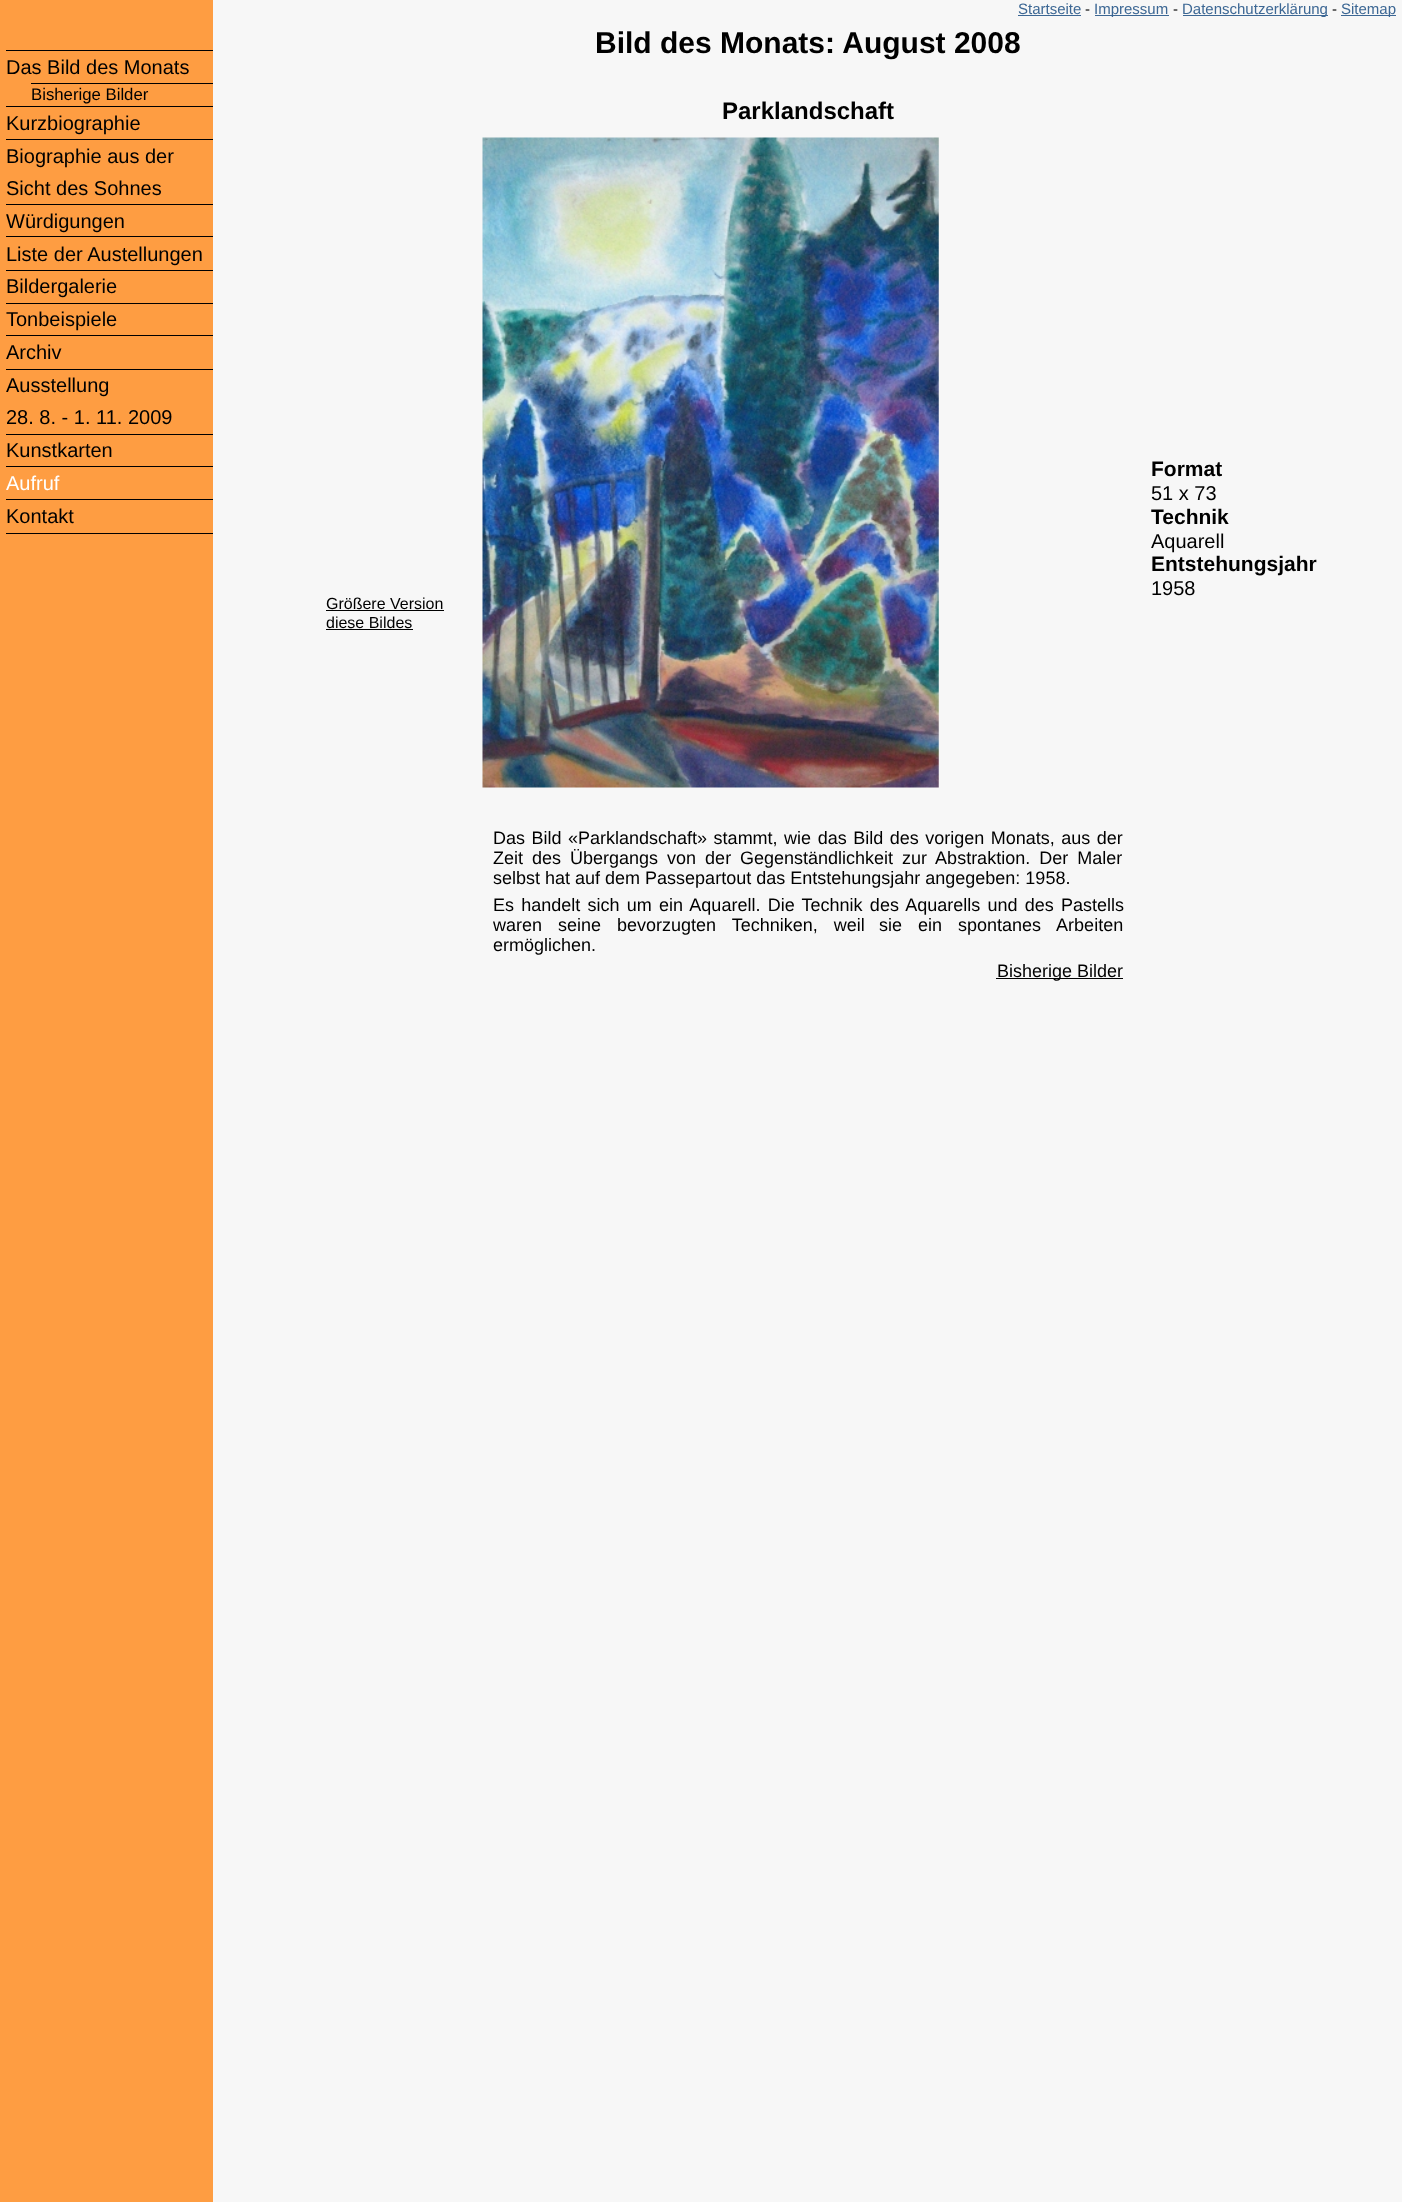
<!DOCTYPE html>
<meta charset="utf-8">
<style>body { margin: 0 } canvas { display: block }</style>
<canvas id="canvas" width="1402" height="2202"></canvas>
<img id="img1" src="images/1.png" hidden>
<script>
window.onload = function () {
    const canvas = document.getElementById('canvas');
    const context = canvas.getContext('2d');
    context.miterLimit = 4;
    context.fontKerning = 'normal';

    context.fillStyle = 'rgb(254, 157, 66)';
    context.fillRect(0, 0, 1402, 2202);
    context.fillStyle = 'rgb(247, 247, 247)';
    context.fillRect(213, 0, 1189, 2202);
    context.fillStyle = 'rgb(60, 103, 148)';
    context.fillRect(1018, 15, 63, 1);
    context.fillRect(1095, 15, 74, 1);
    context.fillRect(1183, 15, 145, 1);
    context.fillRect(1341, 15, 55, 1);
    context.fillStyle = 'rgb(0, 0, 0)';
    context.fillRect(6, 50, 207, 1);
    context.fillRect(6, 106, 207, 1);
    context.fillRect(31, 83, 182, 1);
    context.fillRect(6, 139, 207, 1);
    context.fillRect(6, 204, 207, 1);
    context.fillRect(6, 236, 207, 1);
    context.fillRect(6, 270, 207, 1);
    context.fillRect(6, 303, 207, 1);
    context.fillRect(6, 335, 207, 1);
    context.fillRect(6, 369, 207, 1);
    context.fillRect(6, 434, 207, 1);
    context.fillRect(6, 466, 207, 1);
    context.fillRect(6, 499, 207, 1);
    context.fillRect(6, 533, 207, 1);
    context.drawImage(document.getElementById('img1'), 482, 137, 457, 651);
    context.fillRect(326, 610, 118, 1);
    context.fillRect(326, 629, 87, 1);
    context.fillRect(996, 978, 127, 1);
    context.font = '15px Liberation Sans';
    context.fillStyle = 'rgb(60, 103, 148)';
    context.fillText('Startseite', 1018, 14);
    context.fillStyle = 'rgb(0, 0, 0)';
    context.fillText('-', 1085, 14);
    context.fillStyle = 'rgb(60, 103, 148)';
    context.fillText('Impressum', 1094, 14);
    context.fillStyle = 'rgb(0, 0, 0)';
    context.fillText('-', 1173, 14);
    context.fillStyle = 'rgb(60, 103, 148)';
    context.fillText('Datenschutzerklärung', 1182, 14);
    context.fillStyle = 'rgb(0, 0, 0)';
    context.fillText('-', 1332, 14);
    context.fillStyle = 'rgb(60, 103, 148)';
    context.fillText('Sitemap', 1341, 14);
    context.font = '20px Liberation Sans';
    context.fillStyle = 'rgb(0, 0, 0)';
    context.fillText('Das Bild des Monats', 6, 74);
    context.font = '16.75px Liberation Sans';
    context.fillText('Bisherige Bilder', 31, 100);
    context.font = '20px Liberation Sans';
    context.fillText('Kurzbiographie', 6, 130);
    context.fillText('Biographie aus der', 6, 163);
    context.fillText('Sicht des Sohnes', 6, 195);
    context.fillText('Würdigungen', 6, 228);
    context.fillText('Liste der Austellungen', 6, 261);
    context.fillText('Bildergalerie', 6, 293);
    context.fillText('Tonbeispiele', 6, 326);
    context.fillText('Archiv', 6, 359);
    context.fillText('Ausstellung', 6, 392);
    context.fillText('28. 8. - 1. 11. 2009', 6, 424);
    context.fillText('Kunstkarten', 6, 457);
    context.fillStyle = 'rgb(255, 255, 255)';
    context.fillText('Aufruf', 6, 490);
    context.fillStyle = 'rgb(0, 0, 0)';
    context.fillText('Kontakt', 6, 523);
    context.font = 'bold 30px Liberation Sans';
    context.fillText('Bild des Monats: August 2008', 595, 53);
    context.font = 'bold 24px Liberation Sans';
    context.fillText('Parklandschaft', 722, 119);
    context.font = 'bold 21px Liberation Sans';
    context.fillText('Format', 1151, 476);
    context.font = '20px Liberation Sans';
    context.fillText('51 x 73', 1151, 500);
    context.font = 'bold 21px Liberation Sans';
    context.fillText('Technik', 1151, 524);
    context.font = '20px Liberation Sans';
    context.fillText('Aquarell', 1151, 548);
    context.font = 'bold 21px Liberation Sans';
    context.fillText('Entstehungsjahr', 1151, 571);
    context.font = '20px Liberation Sans';
    context.fillText('1958', 1151, 595);
    context.font = '16px Liberation Sans';
    context.fillText('Größere Version', 326, 609);
    context.fillText('diese Bildes', 326, 628);
    context.wordSpacing = '1.5px';
    context.font = '18px Liberation Sans';
    context.fillText('Das Bild «Parklandschaft» stammt, wie das Bild des vorigen Monats, aus der', 493, 844);
    context.wordSpacing = '4px';
    context.fillText('Zeit des Übergangs von der', 493, 864);
    context.fillText('Gegenständlichkeit zur Abstraktion. Der Maler', 740, 864);
    context.wordSpacing = '0px';
    context.fillText('selbst hat auf dem Passepartout das Entstehungsjahr angegeben: 1958.', 493, 884);
    context.wordSpacing = '2.25px';
    context.fillText('Es handelt sich um ein Aquarell. Die Technik des Aquarells und des Pastells', 493, 911);
    context.wordSpacing = '11px';
    context.fillText('waren seine bevorzugten Techniken, weil', 493, 931);
    context.fillText('sie ein spontanes Arbeiten', 879, 931);
    context.wordSpacing = '0px';
    context.fillText('ermöglichen.', 493, 951);
    context.fillText('Bisherige Bilder', 997, 977);
};
</script>
